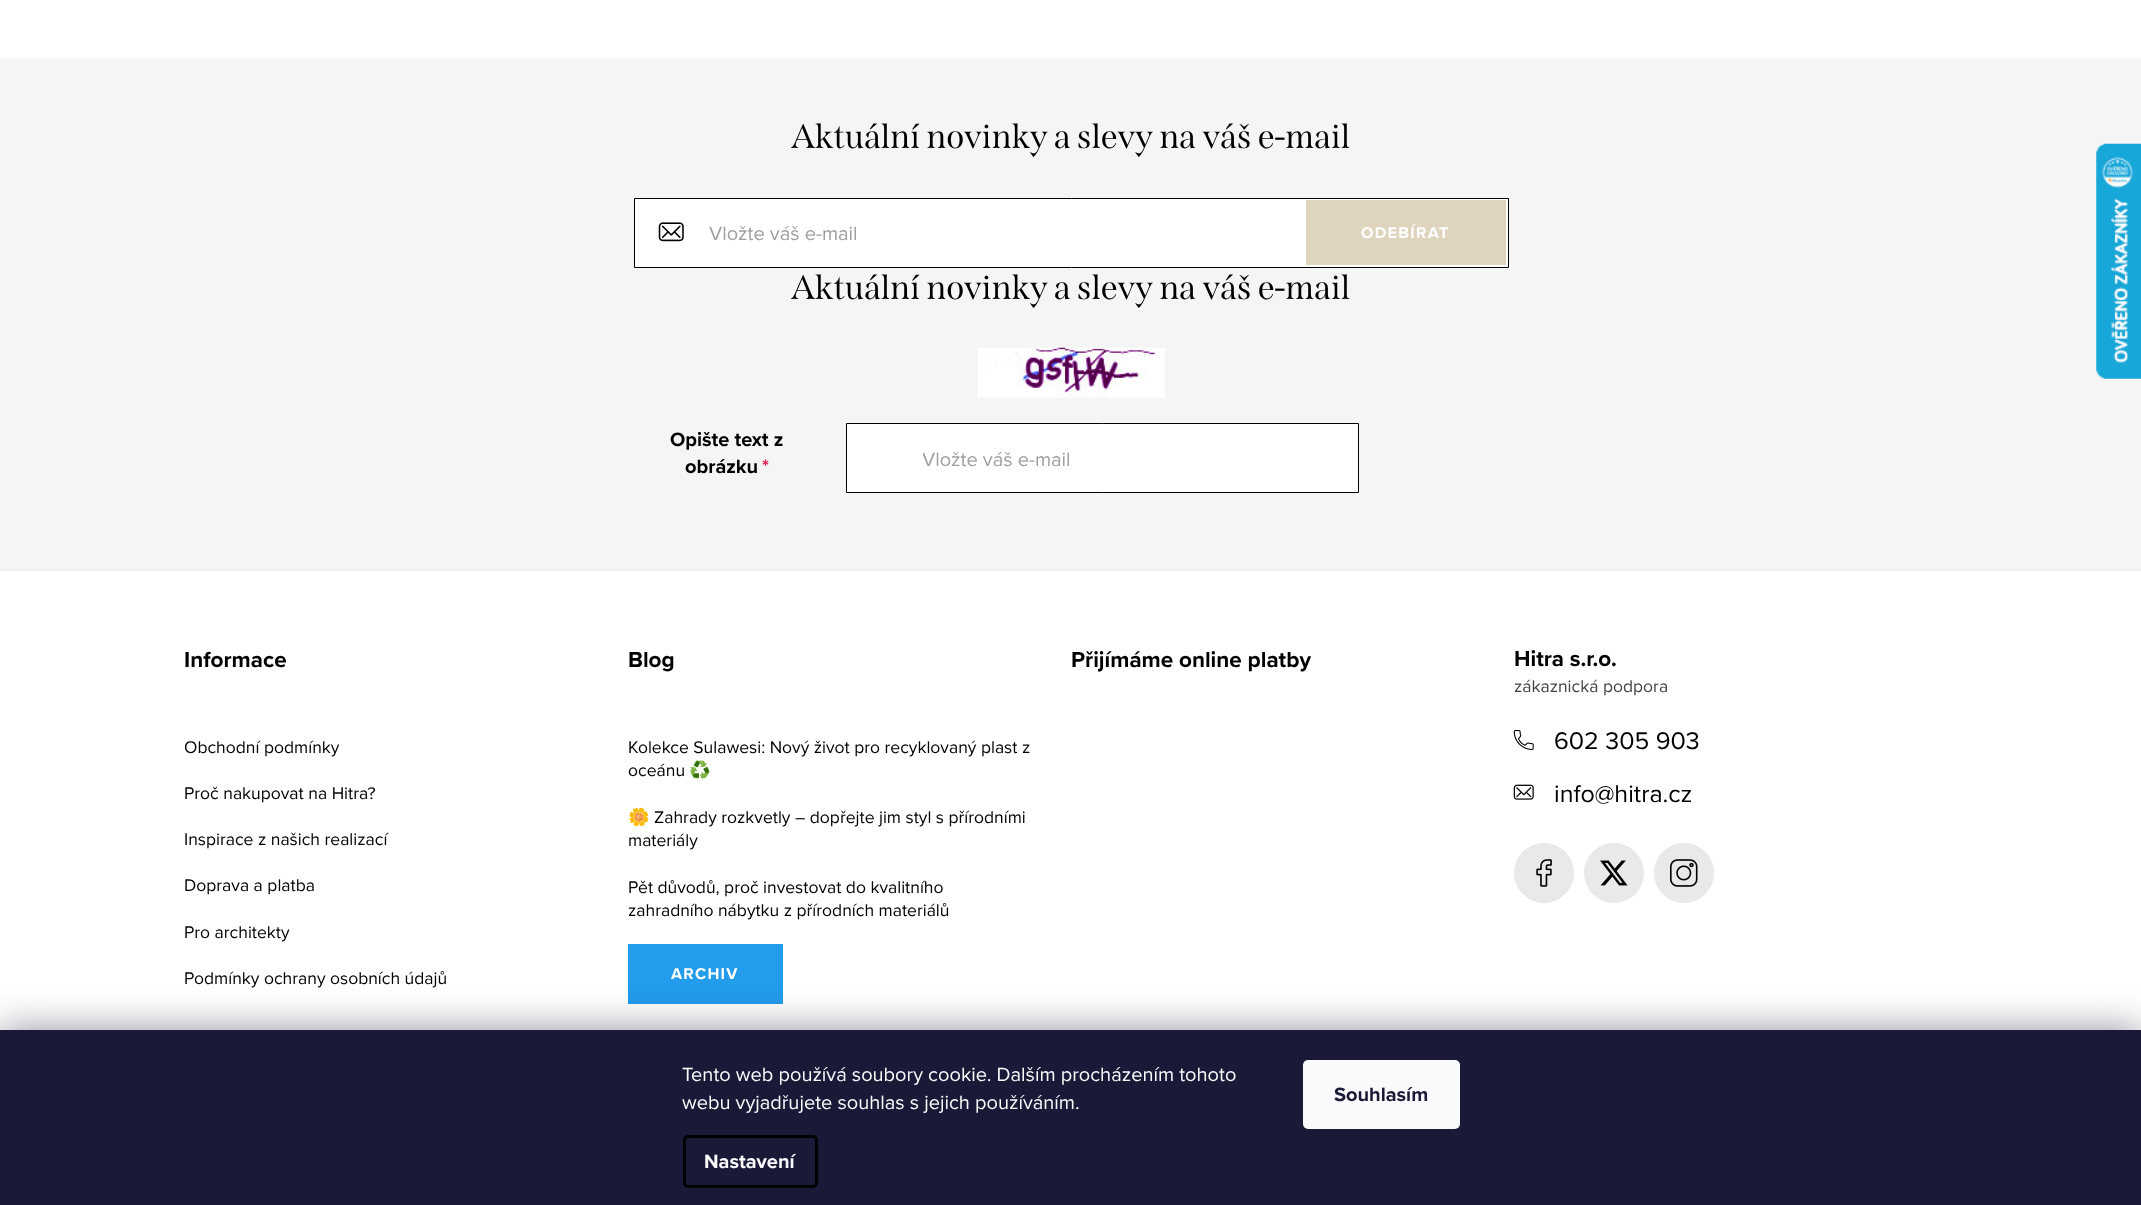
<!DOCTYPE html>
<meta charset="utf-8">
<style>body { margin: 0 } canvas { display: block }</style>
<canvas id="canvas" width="2141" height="1205"></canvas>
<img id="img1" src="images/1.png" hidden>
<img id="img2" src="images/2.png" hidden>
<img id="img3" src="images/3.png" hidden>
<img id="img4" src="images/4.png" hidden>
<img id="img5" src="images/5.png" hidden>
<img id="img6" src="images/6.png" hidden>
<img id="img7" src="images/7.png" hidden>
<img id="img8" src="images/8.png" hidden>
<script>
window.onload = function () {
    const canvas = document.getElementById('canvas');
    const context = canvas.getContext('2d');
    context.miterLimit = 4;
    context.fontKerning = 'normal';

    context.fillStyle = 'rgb(255, 255, 255)';
    context.fillRect(0, 0, 2141, 1205);
    context.fillStyle = 'rgb(245, 245, 245)';
    context.fillRect(0, 58, 2141, 512);
    context.fillStyle = 'rgb(255, 255, 255)';
    context.beginPath();
    context.rect(634.5, 198.5, 874, 69);
    context.fill();
    context.strokeStyle = 'rgb(0, 0, 0)';
    context.stroke();
    context.drawImage(document.getElementById('img1'), 658, 222, 26, 20);
    context.fillStyle = 'rgb(223, 212, 190)';
    context.fillRect(1306, 200, 200, 65);
    context.drawImage(document.getElementById('img2'), 977, 347, 188, 51);
    context.fillStyle = 'rgb(255, 255, 255)';
    context.beginPath();
    context.rect(846.5, 423.5, 512, 69);
    context.fill();
    context.stroke();
    context.fillStyle = 'rgb(233, 233, 233)';
    context.fillRect(0, 570, 2141, 1);
    context.fillStyle = 'rgb(35, 156, 235)';
    context.fillRect(628, 944, 155, 60);
    context.drawImage(document.getElementById('img3'), 1513, 730, 21, 20);
    context.drawImage(document.getElementById('img4'), 1513, 784, 21, 16);
    context.fillStyle = 'rgb(233, 233, 233)';
    context.beginPath();
    context.arc(1544, 873, 30, 0, 2 * Math.PI);
    context.fill();
    context.drawImage(document.getElementById('img5'), 1536, 859, 16, 28);
    context.beginPath();
    context.arc(1614, 873, 30, 0, 2 * Math.PI);
    context.fill();
    context.drawImage(document.getElementById('img6'), 1600, 860, 28, 26);
    context.beginPath();
    context.arc(1684, 873, 30, 0, 2 * Math.PI);
    context.fill();
    context.drawImage(document.getElementById('img7'), 1670, 859, 28, 28);
    context.drawImage(document.getElementById('img8'), 2096, 143, 45, 236);
    context.fillStyle = 'rgba(27, 25, 57, 0.5)';
    context.filter = 'blur(19px)';
    context.beginPath();
    context.rect(0, 1030, 2141, 175);
    context.fill();
    context.filter = 'none';
    context.fillStyle = 'rgb(26, 25, 55)';
    context.fillRect(0, 1030, 2141, 175);
    context.beginPath();
    context.roundRect(684.5, 1136.5, 132, 50, 3.5);
    context.lineWidth = 3;
    context.stroke();
    context.fillStyle = 'rgb(248, 250, 251)';
    context.beginPath();
    context.roundRect(1303, 1060, 157, 69, 5);
    context.fill();
    context.font = '33.75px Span';
    context.fillStyle = 'rgb(0, 0, 0)';
    context.fillText('Aktuální novinky a slevy na váš e-mail', 791, 148);
    context.font = '20px Proxima Nova';
    context.fillStyle = 'rgb(160, 160, 160)';
    context.fillText('Vložte váš e-mail', 709, 240);
    context.letterSpacing = '1.25px';
    context.font = 'bold 16.25px Proxima Nova';
    context.fillStyle = 'rgb(255, 255, 255)';
    context.fillText('ODEBÍRAT', 1361, 238);
    context.letterSpacing = '0px';
    context.font = '33.75px Span';
    context.fillStyle = 'rgb(0, 0, 0)';
    context.fillText('Aktuální novinky a slevy na váš e-mail', 791, 299);
    context.font = 'bold 20px Proxima Nova';
    context.fillText('Opište text z', 670, 446);
    context.fillText('obrázku', 685, 473);
    context.fillStyle = 'rgb(227, 30, 83)';
    context.fillText('*', 762, 473);
    context.save();
    context.beginPath();
    context.rect(923, 444, 235, 27);
    context.clip();
    context.font = '20px Proxima Nova';
    context.fillStyle = 'rgb(160, 160, 160)';
    context.fillText('Vložte váš e-mail', 922, 466);
    context.restore();
    context.font = 'bold 22.5px Proxima Nova';
    context.fillStyle = 'rgb(0, 0, 0)';
    context.fillText('Informace', 184, 667);
    context.font = '17.5px Proxima Nova';
    context.fillText('Obchodní podmínky', 184, 753);
    context.fillText('Proč nakupovat na Hitra?', 184, 799);
    context.fillText('Inspirace z našich realizací', 184, 845);
    context.fillText('Doprava a platba', 184, 891);
    context.fillText('Pro architekty', 184, 938);
    context.fillText('Podmínky ochrany osobních údajů', 184, 984);
    context.font = 'bold 22.5px Proxima Nova';
    context.fillText('Blog', 628, 667);
    context.font = '17.5px Proxima Nova';
    context.fillText('Kolekce Sulawesi: Nový život pro recyklovaný plast z', 628, 753);
    context.fillText('oceánu', 628, 776);
    context.font = '17.5px Noto Color Emoji';
    context.fillText('♻️', 689, 776);
    context.fillText('🌼', 628, 823);
    context.font = '17.5px Proxima Nova';
    context.fillText('Zahrady rozkvetly – dopřejte jim styl s přírodními', 654, 823);
    context.fillText('materiály', 628, 846);
    context.fillText('Pět důvodů, proč investovat do kvalitního', 628, 893);
    context.fillText('zahradního nábytku z přírodních materiálů', 628, 916);
    context.letterSpacing = '1.25px';
    context.font = 'bold 16.25px Proxima Nova';
    context.fillStyle = 'rgb(255, 255, 255)';
    context.fillText('ARCHIV', 671, 979);
    context.letterSpacing = '0px';
    context.font = 'bold 22.5px Proxima Nova';
    context.fillStyle = 'rgb(0, 0, 0)';
    context.fillText('Přijímáme online platby', 1071, 667);
    context.fillText('Hitra s.r.o.', 1514, 666);
    context.font = '17.5px Proxima Nova';
    context.fillStyle = 'rgb(67, 67, 67)';
    context.fillText('zákaznická podpora', 1514, 692);
    context.font = '25px Proxima Nova';
    context.fillStyle = 'rgb(0, 0, 0)';
    context.fillText('602 305 903', 1554, 749);
    context.fillText('info@hitra.cz', 1554, 802);
    context.font = '20px Proxima Nova';
    context.fillStyle = 'rgb(248, 250, 251)';
    context.fillText('Tento web používá soubory cookie. Dalším procházením tohoto', 682, 1081);
    context.fillText('webu vyjadřujete souhlas s jejich používáním.', 682, 1109);
    context.font = 'bold 20px Proxima Nova';
    context.fillText('Nastavení', 704, 1168);
    context.fillStyle = 'rgb(26, 25, 55)';
    context.fillText('Souhlasím', 1334, 1101);
};
</script>
